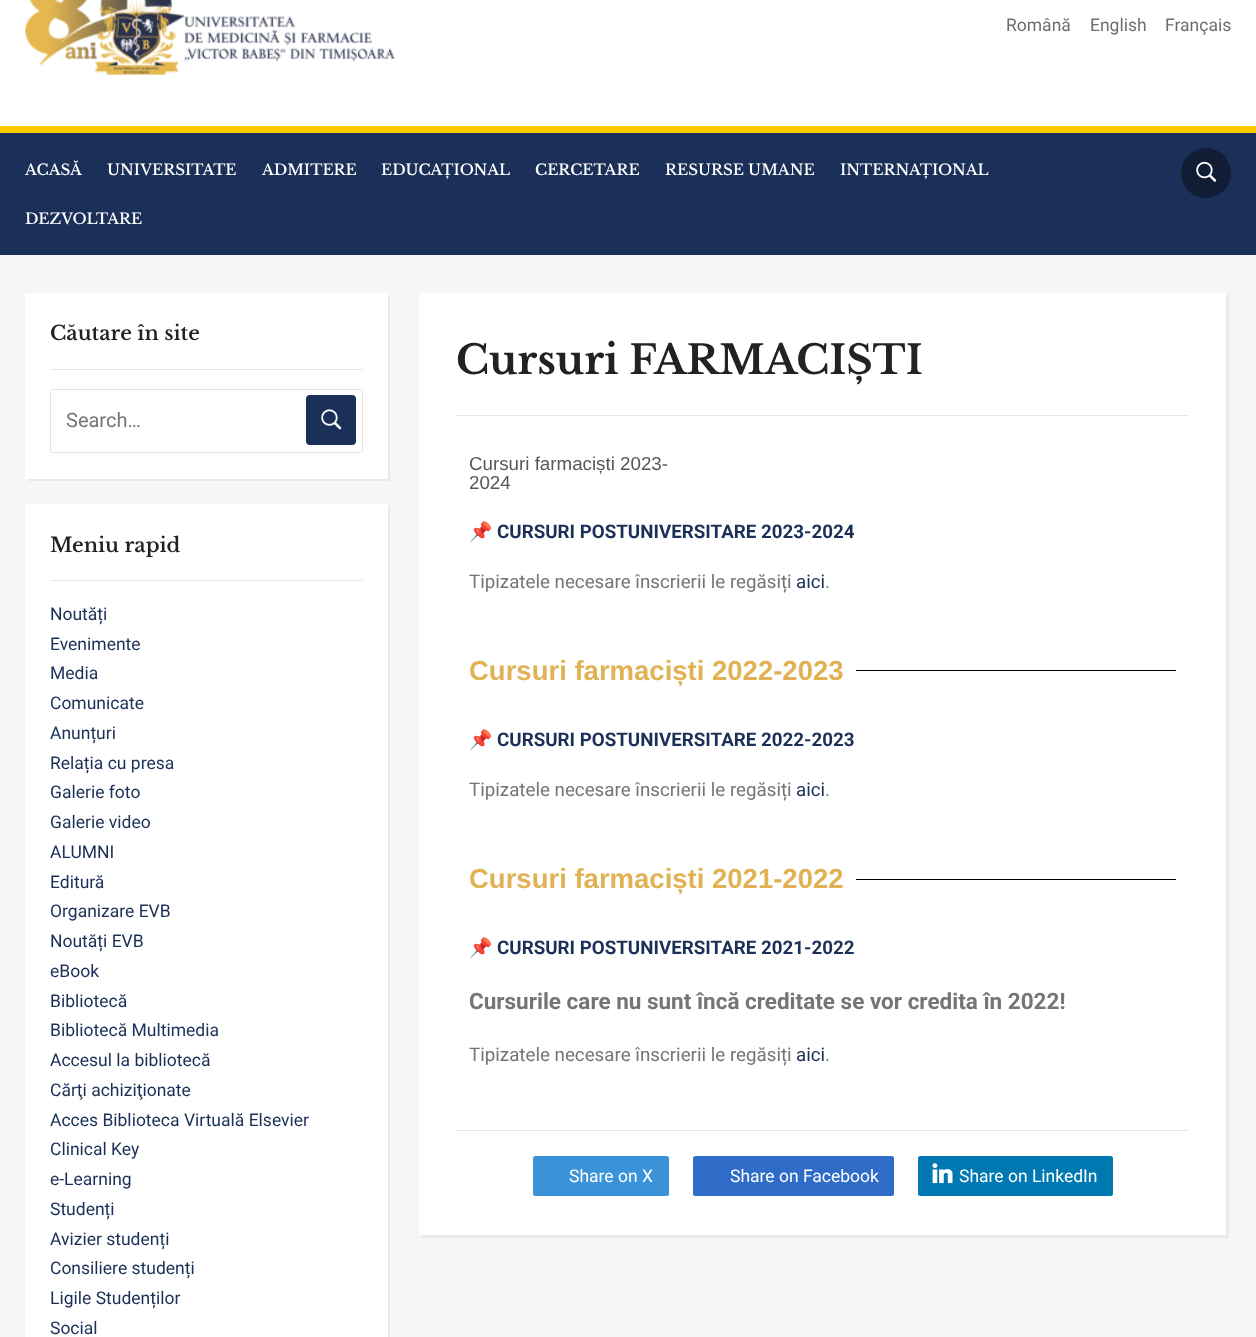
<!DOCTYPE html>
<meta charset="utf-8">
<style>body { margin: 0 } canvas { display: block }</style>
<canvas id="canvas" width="1256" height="1337"></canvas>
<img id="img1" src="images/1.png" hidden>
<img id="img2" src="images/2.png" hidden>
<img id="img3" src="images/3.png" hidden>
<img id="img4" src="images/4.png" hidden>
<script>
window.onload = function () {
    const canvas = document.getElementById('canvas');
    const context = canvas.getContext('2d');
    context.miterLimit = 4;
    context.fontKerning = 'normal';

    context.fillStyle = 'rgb(244, 246, 248)';
    context.fillRect(0, 0, 1256, 1337);
    context.fillStyle = 'rgb(255, 255, 255)';
    context.fillRect(0, 0, 1256, 126);
    context.drawImage(document.getElementById('img1'), 25, 0, 370, 75);
    context.fillStyle = 'rgb(27, 48, 88)';
    context.fillRect(0, 133, 1256, 122);
    context.fillStyle = 'rgb(255, 203, 0)';
    context.fillRect(0, 126, 1256, 7);
    context.fillStyle = 'rgb(16, 29, 53)';
    context.beginPath();
    context.arc(1206, 173, 25, 0, 2 * Math.PI);
    context.fill();
    context.drawImage(document.getElementById('img2'), 1196, 161, 21, 21);
    context.fillStyle = 'rgb(232, 234, 236)';
    context.beginPath();
    context.moveTo(28, 479);
    context.lineTo(28, 481);
    context.lineTo(390, 481);
    context.lineTo(390, 295);
    context.lineTo(388, 295);
    context.lineTo(388, 479);
    context.closePath();
    context.fill();
    context.fillStyle = 'rgb(255, 255, 255)';
    context.fillRect(25, 293, 363, 186);
    context.fillStyle = 'rgb(230, 230, 230)';
    context.fillRect(50, 369, 313, 1);
    context.beginPath();
    context.roundRect(50.5, 389.5, 312, 63, 2);
    context.strokeStyle = 'rgb(226, 226, 226)';
    context.stroke();
    context.fillStyle = 'rgb(27, 48, 88)';
    context.beginPath();
    context.roundRect(306, 395, 50, 50, 4);
    context.fill();
    context.drawImage(document.getElementById('img3'), 321, 409, 21, 21);
    context.fillStyle = 'rgb(232, 234, 236)';
    context.beginPath();
    context.moveTo(28, 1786);
    context.lineTo(28, 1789);
    context.lineTo(390, 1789);
    context.lineTo(390, 506);
    context.lineTo(388, 506);
    context.lineTo(388, 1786);
    context.closePath();
    context.fill();
    context.fillStyle = 'rgb(255, 255, 255)';
    context.fillRect(25, 504, 363, 833);
    context.fillStyle = 'rgb(230, 230, 230)';
    context.fillRect(50, 580, 313, 1);
    context.fillStyle = 'rgb(232, 234, 236)';
    context.beginPath();
    context.moveTo(421, 1235);
    context.lineTo(421, 1238);
    context.lineTo(1229, 1238);
    context.lineTo(1229, 295);
    context.lineTo(1226, 295);
    context.lineTo(1226, 1235);
    context.closePath();
    context.fill();
    context.fillStyle = 'rgb(255, 255, 255)';
    context.fillRect(419, 293, 807, 942);
    context.fillStyle = 'rgb(231, 231, 231)';
    context.fillRect(456, 415, 733, 1);
    context.fillStyle = 'rgb(0, 0, 0)';
    context.fillRect(856, 670, 320, 1);
    context.fillRect(856, 879, 320, 1);
    context.fillStyle = 'rgb(231, 231, 231)';
    context.fillRect(456, 1130, 733, 1);
    context.fillStyle = 'rgb(58, 147, 216)';
    context.beginPath();
    context.roundRect(533, 1156, 136, 40, 2.5);
    context.fill();
    context.fillStyle = 'rgb(46, 108, 200)';
    context.beginPath();
    context.roundRect(693, 1156, 201, 40, 2.5);
    context.fill();
    context.fillStyle = 'rgb(0, 121, 178)';
    context.beginPath();
    context.roundRect(918, 1156, 195, 40, 2.5);
    context.fill();
    context.drawImage(document.getElementById('img4'), 932, 1163, 21, 21);
    context.font = '17.5px Roboto';
    context.fillStyle = 'rgb(109, 109, 109)';
    context.fillText('Română', 1006, 31);
    context.fillText('English', 1090, 31);
    context.fillText('Français', 1165, 31);
    context.font = '500 15px Libre Baskerville';
    context.fillStyle = 'rgb(255, 255, 255)';
    context.fillText('ACASĂ', 25, 175);
    context.fillText('UNIVERSITATE', 107, 175);
    context.fillText('ADMITERE', 262, 175);
    context.fillText('EDUCAȚIONAL', 381, 175);
    context.fillText('CERCETARE', 535, 175);
    context.fillText('RESURSE UMANE', 665, 175);
    context.fillText('INTERNAȚIONAL', 840, 175);
    context.fillText('DEZVOLTARE', 25, 224);
    context.font = '600 20px Libre Baskerville';
    context.fillStyle = 'rgb(34, 34, 34)';
    context.fillText('Căutare în site', 50, 340);
    context.font = '20px Roboto';
    context.fillStyle = 'rgb(117, 117, 117)';
    context.fillText('Search…', 66, 427);
    context.font = '600 20px Libre Baskerville';
    context.fillStyle = 'rgb(34, 34, 34)';
    context.fillText('Meniu rapid', 50, 552);
    context.font = '17.5px Roboto';
    context.fillStyle = 'rgb(27, 48, 88)';
    context.fillText('Noutăți', 50, 620);
    context.fillText('Evenimente', 50, 650);
    context.fillText('Media', 50, 679);
    context.fillText('Comunicate', 50, 709);
    context.fillText('Anunțuri', 50, 739);
    context.fillText('Relația cu presa', 50, 769);
    context.fillText('Galerie foto', 50, 798);
    context.fillText('Galerie video', 50, 828);
    context.fillText('ALUMNI', 50, 858);
    context.fillText('Editură', 50, 888);
    context.fillText('Organizare EVB', 50, 917);
    context.fillText('Noutăți EVB', 50, 947);
    context.fillText('eBook', 50, 977);
    context.fillText('Bibliotecă', 50, 1007);
    context.fillText('Bibliotecă Multimedia', 50, 1036);
    context.fillText('Accesul la bibliotecă', 50, 1066);
    context.fillText('Cărţi achiziţionate', 50, 1096);
    context.fillText('Acces Biblioteca Virtuală Elsevier', 50, 1126);
    context.fillText('Clinical Key', 50, 1155);
    context.fillText('e-Learning', 50, 1185);
    context.fillText('Studenți', 50, 1215);
    context.fillText('Avizier studenți', 50, 1245);
    context.fillText('Consiliere studenți', 50, 1274);
    context.fillText('Ligile Studenților', 50, 1304);
    context.fillText('Social', 50, 1334);
    context.font = 'bold 40px Libre Baskerville';
    context.fillStyle = 'rgb(34, 34, 34)';
    context.fillText('Cursuri FARMACIȘTI', 456, 374);
    context.font = '18.75px Liberation Sans';
    context.fillStyle = 'rgb(84, 89, 95)';
    context.fillText('Cursuri farmaciști 2023-', 469, 470);
    context.fillText('2024', 469, 489);
    context.font = 'bold 18.75px Noto Color Emoji';
    context.fillStyle = 'rgb(117, 117, 117)';
    context.fillText('📌', 469, 538);
    context.font = 'bold 18.75px Roboto';
    context.fillStyle = 'rgb(27, 48, 88)';
    context.fillText('CURSURI POSTUNIVERSITARE 2023-2024', 497, 538);
    context.font = '18.75px Roboto';
    context.fillStyle = 'rgb(117, 117, 117)';
    context.fillText('Tipizatele necesare înscrierii le regăsiți', 469, 588);
    context.fillStyle = 'rgb(27, 48, 88)';
    context.fillText('aici', 796, 588);
    context.fillStyle = 'rgb(117, 117, 117)';
    context.fillText('.', 825, 588);
    context.font = 'bold 27.5px Liberation Sans';
    context.fillStyle = 'rgb(224, 178, 83)';
    context.fillText('Cursuri farmaciști 2022-2023', 469, 680);
    context.font = 'bold 18.75px Noto Color Emoji';
    context.fillStyle = 'rgb(117, 117, 117)';
    context.fillText('📌', 469, 746);
    context.font = 'bold 18.75px Roboto';
    context.fillStyle = 'rgb(27, 48, 88)';
    context.fillText('CURSURI POSTUNIVERSITARE 2022-2023', 497, 746);
    context.font = '18.75px Roboto';
    context.fillStyle = 'rgb(117, 117, 117)';
    context.fillText('Tipizatele necesare înscrierii le regăsiți', 469, 796);
    context.fillStyle = 'rgb(27, 48, 88)';
    context.fillText('aici', 796, 796);
    context.fillStyle = 'rgb(117, 117, 117)';
    context.fillText('.', 825, 796);
    context.font = 'bold 27.5px Liberation Sans';
    context.fillStyle = 'rgb(224, 178, 83)';
    context.fillText('Cursuri farmaciști 2021-2022', 469, 888);
    context.font = 'bold 18.75px Noto Color Emoji';
    context.fillStyle = 'rgb(117, 117, 117)';
    context.fillText('📌', 469, 954);
    context.font = 'bold 18.75px Roboto';
    context.fillStyle = 'rgb(27, 48, 88)';
    context.fillText('CURSURI POSTUNIVERSITARE 2021-2022', 497, 954);
    context.font = 'bold 22.5px Roboto';
    context.fillStyle = 'rgb(117, 117, 117)';
    context.fillText('Cursurile care nu sunt încă creditate se vor credita în 2022!', 469, 1009);
    context.font = '18.75px Roboto';
    context.fillText('Tipizatele necesare înscrierii le regăsiți', 469, 1061);
    context.fillStyle = 'rgb(27, 48, 88)';
    context.fillText('aici', 796, 1061);
    context.fillStyle = 'rgb(117, 117, 117)';
    context.fillText('.', 825, 1061);
    context.font = '17.5px Roboto';
    context.fillStyle = 'rgb(255, 255, 255)';
    context.fillText('Share on X', 569, 1182);
    context.fillText('Share on Facebook', 730, 1182);
    context.fillText('Share on LinkedIn', 959, 1182);
};
</script>
